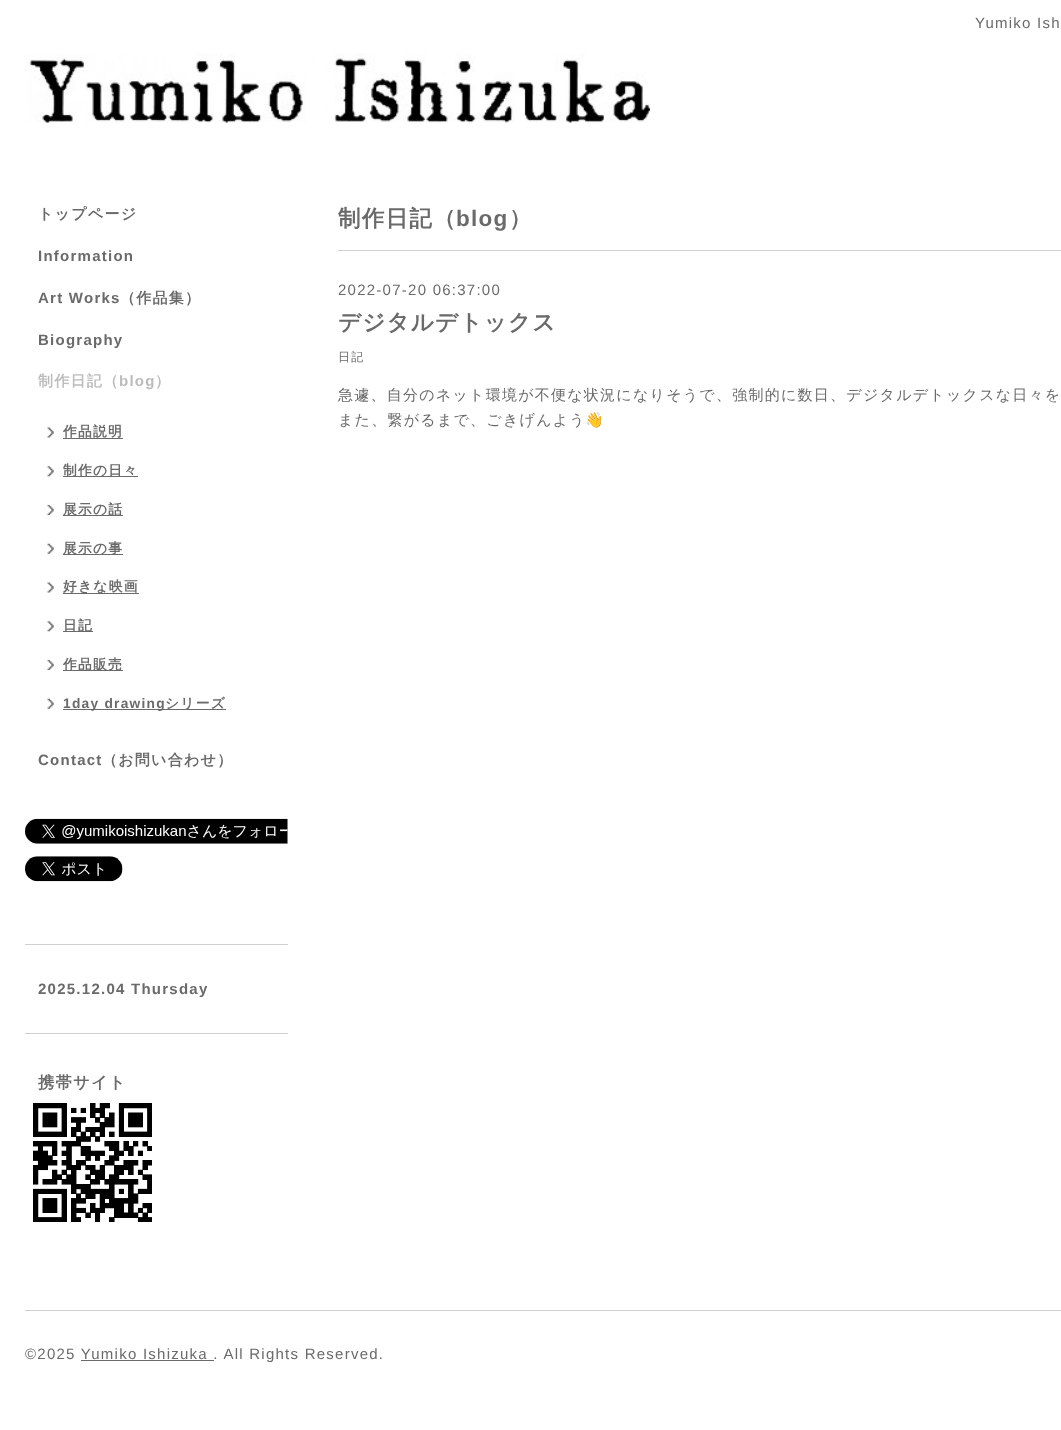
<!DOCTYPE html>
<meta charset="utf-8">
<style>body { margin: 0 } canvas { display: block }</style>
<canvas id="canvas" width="1061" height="1430"></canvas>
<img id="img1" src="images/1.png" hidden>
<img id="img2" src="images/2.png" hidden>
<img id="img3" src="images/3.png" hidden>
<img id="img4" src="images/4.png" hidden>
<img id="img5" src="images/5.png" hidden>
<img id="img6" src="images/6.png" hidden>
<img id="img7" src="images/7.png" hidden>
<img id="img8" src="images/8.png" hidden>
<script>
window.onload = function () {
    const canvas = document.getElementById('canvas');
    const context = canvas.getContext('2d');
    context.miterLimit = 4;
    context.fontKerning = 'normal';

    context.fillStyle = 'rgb(255, 255, 255)';
    context.fillRect(0, 0, 1061, 1430);
    context.drawImage(document.getElementById('img1'), 25, 53, 625, 70);
    context.drawImage(document.getElementById('img2'), 47, 427, 7, 11);
    context.fillStyle = 'rgb(106, 106, 106)';
    context.fillRect(63, 438, 60, 1);
    context.drawImage(document.getElementById('img3'), 47, 466, 7, 11);
    context.fillRect(63, 476, 75, 1);
    context.drawImage(document.getElementById('img4'), 47, 504, 7, 11);
    context.fillRect(63, 515, 60, 1);
    context.drawImage(document.getElementById('img5'), 47, 543, 7, 11);
    context.fillRect(63, 554, 60, 1);
    context.drawImage(document.getElementById('img2'), 47, 582, 7, 11);
    context.fillRect(63, 593, 76, 1);
    context.drawImage(document.getElementById('img3'), 47, 621, 7, 11);
    context.fillRect(63, 631, 30, 1);
    context.drawImage(document.getElementById('img4'), 47, 659, 7, 11);
    context.fillRect(63, 670, 60, 1);
    context.drawImage(document.getElementById('img5'), 47, 698, 7, 11);
    context.fillRect(63, 709, 163, 1);
    context.drawImage(document.getElementById('img6'), 25, 818, 263, 26);
    context.drawImage(document.getElementById('img7'), 25, 856, 98, 26);
    context.fillStyle = 'rgb(208, 208, 208)';
    context.fillRect(338, 250, 723, 1);
    context.fillRect(25, 944, 263, 1);
    context.fillRect(25, 1033, 263, 1);
    context.drawImage(document.getElementById('img8'), 33, 1103, 119, 119);
    context.fillRect(25, 1310, 1036, 1);
    context.fillStyle = 'rgb(106, 106, 106)';
    context.fillRect(81, 1360, 133, 1);
    context.letterSpacing = '1.25px';
    context.font = '15px Liberation Sans';
    context.fillText('Yumiko Ish', 975, 28);
    context.font = 'bold 15px WenQuanYi Zen Hei';
    context.fillText('トップページ', 38, 219);
    context.font = 'bold 15px Liberation Sans';
    context.fillText('Information', 38, 261);
    context.fillText('Art Works', 38, 303);
    context.font = 'bold 15px WenQuanYi Zen Hei';
    context.fillText('（作品集）', 120, 303);
    context.font = 'bold 15px Liberation Sans';
    context.fillText('Biography', 38, 345);
    context.font = 'bold 15px WenQuanYi Zen Hei';
    context.fillStyle = 'rgb(188, 188, 188)';
    context.fillText('制作日記（', 38, 386);
    context.font = 'bold 15px Liberation Sans';
    context.fillText('blog', 119, 386);
    context.font = 'bold 15px WenQuanYi Zen Hei';
    context.fillText('）', 155, 386);
    context.font = 'bold 13.75px WenQuanYi Zen Hei';
    context.fillStyle = 'rgb(106, 106, 106)';
    context.fillText('作品説明', 63, 436);
    context.fillText('制作の日々', 63, 475);
    context.fillText('展示の話', 63, 514);
    context.fillText('展示の事', 63, 553);
    context.fillText('好きな映画', 63, 591);
    context.fillText('日記', 63, 630);
    context.fillText('作品販売', 63, 669);
    context.font = 'bold 13.75px Liberation Sans';
    context.fillText('1day drawing', 63, 708);
    context.font = 'bold 13.75px WenQuanYi Zen Hei';
    context.fillText('シリーズ', 165, 708);
    context.font = 'bold 15px Liberation Sans';
    context.fillText('Contact', 38, 765);
    context.font = 'bold 15px WenQuanYi Zen Hei';
    context.fillText('（お問い合わせ）', 102, 765);
    context.font = 'bold 22.5px WenQuanYi Zen Hei';
    context.fillText('制作日記（', 338, 226);
    context.font = 'bold 22.5px Liberation Sans';
    context.fillText('blog', 456, 226);
    context.font = 'bold 22.5px WenQuanYi Zen Hei';
    context.fillText('）', 509, 226);
    context.font = '15px Liberation Sans';
    context.fillText('2022-07-20 06:37:00', 338, 295);
    context.font = 'bold 22.5px WenQuanYi Zen Hei';
    context.fillText('デジタルデトックス', 338, 330);
    context.font = '500 12px WenQuanYi Zen Hei';
    context.fillText('日記', 338, 361);
    context.font = '500 15px WenQuanYi Zen Hei';
    context.fillText('急遽、自分のネット環境が不便な状況になりそうで、強制的に数日、デジタルデトックスな日々を', 338, 400);
    context.fillText('また、繋がるまで、ごきげんよう', 338, 425);
    context.font = '15px Noto Color Emoji';
    context.fillText('👋', 585, 425);
    context.font = 'bold 15px Liberation Sans';
    context.fillText('2025.12.04 Thursday', 38, 994);
    context.font = 'bold 16.25px WenQuanYi Zen Hei';
    context.fillText('携帯サイト', 38, 1088);
    context.font = '15px Liberation Sans';
    context.fillText('©2025 Yumiko Ishizuka . All Rights Reserved.', 25, 1359);
};
</script>
